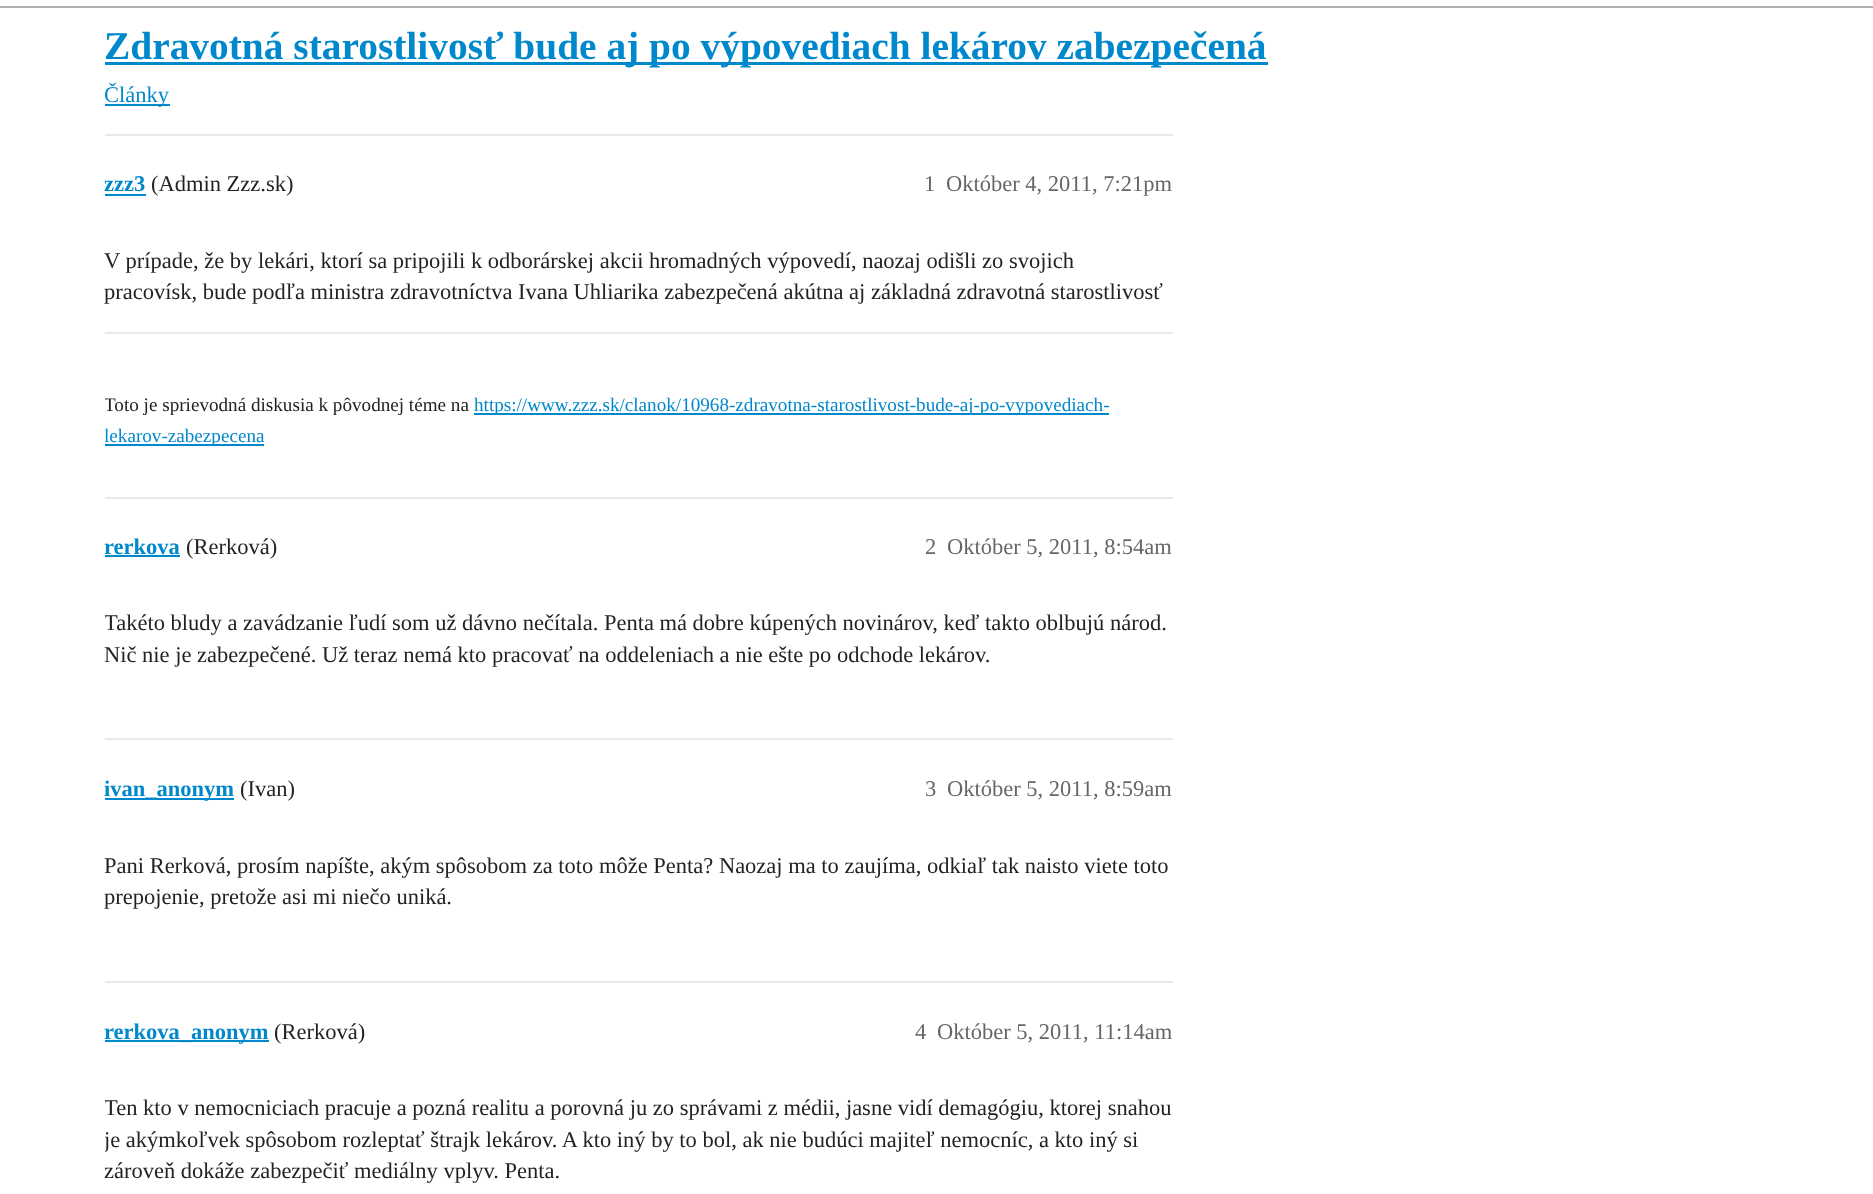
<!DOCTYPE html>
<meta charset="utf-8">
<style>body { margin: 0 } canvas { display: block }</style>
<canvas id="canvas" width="1873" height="1194"></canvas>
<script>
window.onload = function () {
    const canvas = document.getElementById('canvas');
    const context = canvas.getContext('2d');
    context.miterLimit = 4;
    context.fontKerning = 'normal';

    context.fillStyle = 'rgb(255, 255, 255)';
    context.fillRect(0, 0, 1873, 1194);
    context.fillStyle = 'rgb(175, 175, 175)';
    context.fillRect(0, 6, 1873, 2);
    context.fillStyle = 'rgb(0, 136, 204)';
    context.fillRect(105, 62, 1163, 3);
    context.fillRect(105, 104, 65, 2);
    context.fillStyle = 'rgb(233, 233, 233)';
    context.fillRect(105, 134, 1068, 2);
    context.fillStyle = 'rgb(0, 136, 204)';
    context.fillRect(105, 194, 41, 2);
    context.fillStyle = 'rgb(233, 233, 233)';
    context.fillRect(105, 332, 1068, 2);
    context.fillStyle = 'rgb(0, 136, 204)';
    context.fillRect(474, 413, 635, 2);
    context.fillRect(105, 444, 159, 2);
    context.fillStyle = 'rgb(233, 233, 233)';
    context.fillRect(105, 497, 1068, 2);
    context.fillStyle = 'rgb(0, 136, 204)';
    context.fillRect(105, 555, 75, 2);
    context.fillStyle = 'rgb(233, 233, 233)';
    context.fillRect(105, 738, 1068, 2);
    context.fillStyle = 'rgb(0, 136, 204)';
    context.fillRect(105, 798, 129, 2);
    context.fillStyle = 'rgb(233, 233, 233)';
    context.fillRect(105, 981, 1068, 2);
    context.fillStyle = 'rgb(0, 136, 204)';
    context.fillRect(105, 1040, 164, 2);
    context.font = 'bold 39.4px Liberation Serif';
    context.fillText('Zdravotná starostlivosť bude aj po výpovediach lekárov zabezpečená', 104, 59);
    context.font = '22.5px Liberation Serif';
    context.fillText('Články', 104, 102);
    context.font = 'bold 22.5px Liberation Serif';
    context.fillText('zzz3', 104, 191);
    context.font = '22.5px Liberation Serif';
    context.fillStyle = 'rgb(34, 34, 34)';
    context.fillText('(Admin Zzz.sk)', 151, 191);
    context.fillStyle = 'rgb(102, 102, 102)';
    context.fillText('1', 924, 191);
    context.fillText('Október 4, 2011, 7:21pm', 946, 191);
    context.fillStyle = 'rgb(34, 34, 34)';
    context.fillText('V prípade, že by lekári, ktorí sa pripojili k odborárskej akcii hromadných výpovedí, naozaj odišli zo svojich', 104, 268);
    context.fillText('pracovísk, bude podľa ministra zdravotníctva Ivana Uhliarika zabezpečená akútna aj základná zdravotná starostlivosť', 104, 299);
    context.save();
    context.beginPath();
    context.rect(105, 224, 1068, 228);
    context.clip();
    context.font = '19.15px Liberation Serif';
    context.fillText('Toto je sprievodná diskusia k pôvodnej téme na', 104, 411);
    context.restore();
    context.font = '19.15px Liberation Serif';
    context.fillStyle = 'rgb(0, 136, 204)';
    context.fillText('https://www.zzz.sk/clanok/10968-zdravotna-starostlivost-bude-aj-po-vypovediach-', 474, 411);
    context.save();
    context.beginPath();
    context.rect(105, 224, 1068, 228);
    context.clip();
    context.fillText('lekarov-zabezpecena', 104, 442);
    context.restore();
    context.font = 'bold 22.5px Liberation Serif';
    context.fillText('rerkova', 104, 554);
    context.font = '22.5px Liberation Serif';
    context.fillStyle = 'rgb(34, 34, 34)';
    context.fillText('(Rerková)', 186, 554);
    context.fillStyle = 'rgb(102, 102, 102)';
    context.fillText('2', 925, 554);
    context.fillText('Október 5, 2011, 8:54am', 947, 554);
    context.save();
    context.beginPath();
    context.rect(105, 585, 1068, 108);
    context.clip();
    context.fillStyle = 'rgb(34, 34, 34)';
    context.fillText('Takéto bludy a zavádzanie ľudí som už dávno nečítala. Penta má dobre kúpených novinárov, keď takto oblbujú národ.', 104, 630);
    context.restore();
    context.fillStyle = 'rgb(34, 34, 34)';
    context.fillText('Nič nie je zabezpečené. Už teraz nemá kto pracovať na oddeleniach a nie ešte po odchode lekárov.', 104, 662);
    context.font = 'bold 22.5px Liberation Serif';
    context.fillStyle = 'rgb(0, 136, 204)';
    context.fillText('ivan_anonym', 104, 796);
    context.font = '22.5px Liberation Serif';
    context.fillStyle = 'rgb(34, 34, 34)';
    context.fillText('(Ivan)', 240, 796);
    context.fillStyle = 'rgb(102, 102, 102)';
    context.fillText('3', 925, 796);
    context.fillText('Október 5, 2011, 8:59am', 947, 796);
    context.fillStyle = 'rgb(34, 34, 34)';
    context.fillText('Pani Rerková, prosím napíšte, akým spôsobom za toto môže Penta? Naozaj ma to zaujíma, odkiaľ tak naisto viete toto', 104, 873);
    context.fillText('prepojenie, pretože asi mi niečo uniká.', 104, 904);
    context.font = 'bold 22.5px Liberation Serif';
    context.fillStyle = 'rgb(0, 136, 204)';
    context.fillText('rerkova_anonym', 104, 1039);
    context.font = '22.5px Liberation Serif';
    context.fillStyle = 'rgb(34, 34, 34)';
    context.fillText('(Rerková)', 274, 1039);
    context.fillStyle = 'rgb(102, 102, 102)';
    context.fillText('4', 915, 1039);
    context.fillText('Október 5, 2011, 11:14am', 937, 1039);
    context.save();
    context.beginPath();
    context.rect(105, 1070, 1068, 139);
    context.clip();
    context.fillStyle = 'rgb(34, 34, 34)';
    context.fillText('Ten kto v nemocniciach pracuje a pozná realitu a porovná ju zo správami z médii, jasne vidí demagógiu, ktorej snahou', 104, 1115);
    context.fillText('je akýmkoľvek spôsobom rozleptať štrajk lekárov. A kto iný by to bol, ak nie budúci majiteľ nemocníc, a kto iný si', 104, 1147);
    context.restore();
    context.fillStyle = 'rgb(34, 34, 34)';
    context.fillText('zároveň dokáže zabezpečiť mediálny vplyv. Penta.', 104, 1178);
};
</script>
